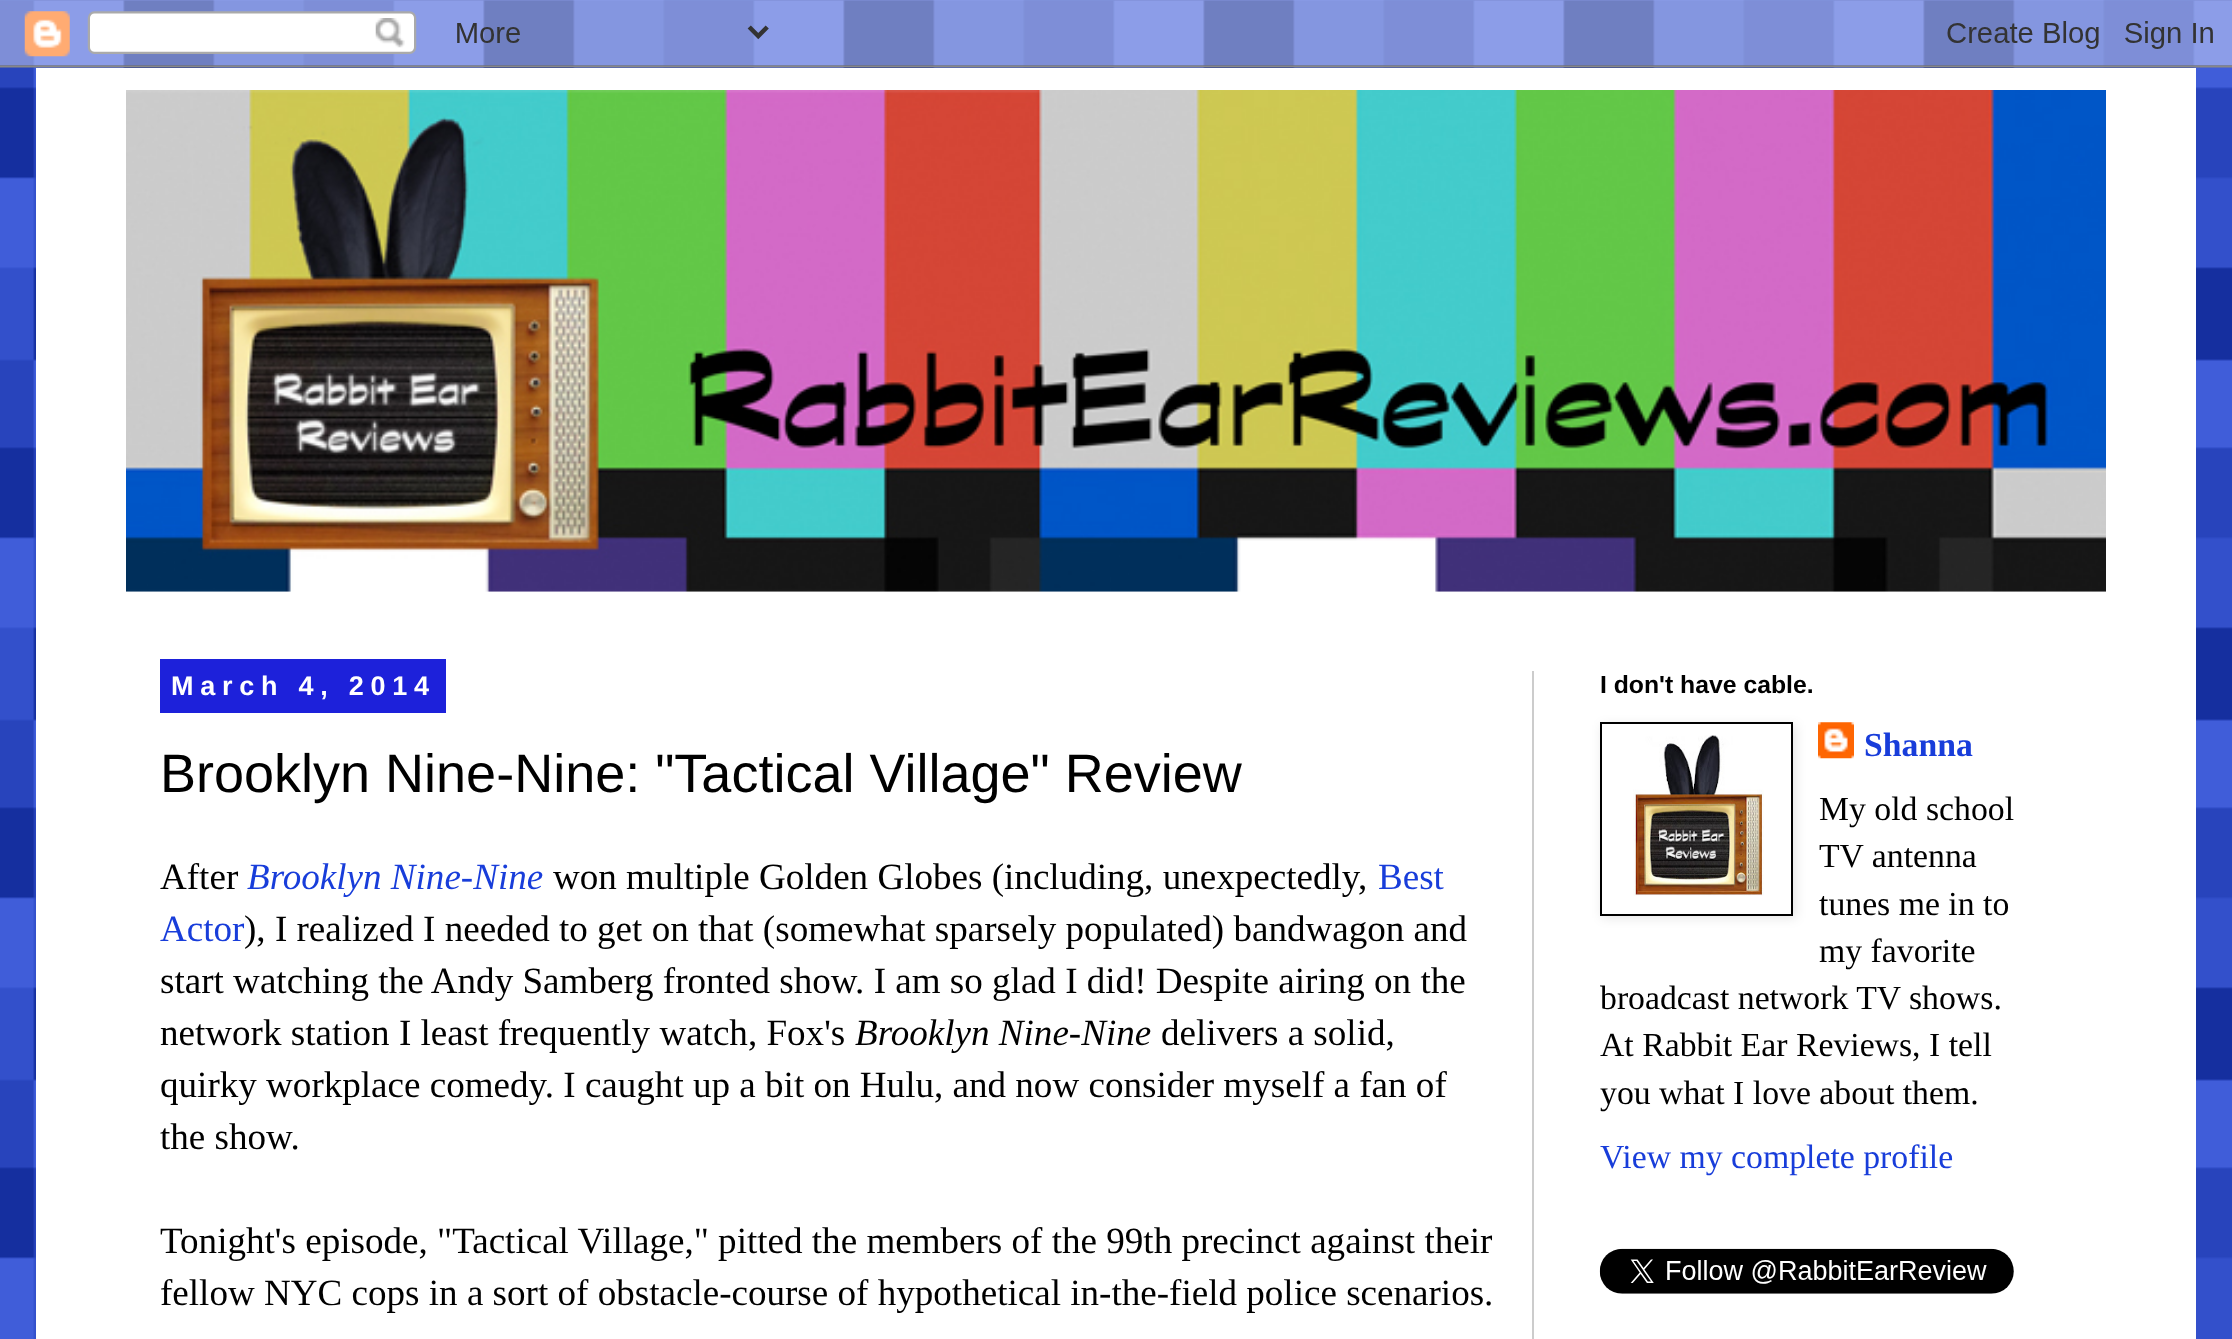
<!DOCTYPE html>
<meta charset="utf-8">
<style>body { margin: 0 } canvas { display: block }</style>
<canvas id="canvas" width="2232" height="1339"></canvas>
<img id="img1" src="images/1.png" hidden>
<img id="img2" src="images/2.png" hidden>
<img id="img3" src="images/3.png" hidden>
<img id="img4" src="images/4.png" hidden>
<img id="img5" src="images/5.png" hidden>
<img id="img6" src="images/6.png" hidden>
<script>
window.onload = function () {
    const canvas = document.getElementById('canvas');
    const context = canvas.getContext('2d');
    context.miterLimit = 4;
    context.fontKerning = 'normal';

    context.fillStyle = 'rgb(24, 61, 218)';
    context.fillRect(0, 0, 2232, 1339);
    context.drawImage(document.getElementById('img1'), 0, 0, 2232, 1339);
    context.drawImage(document.getElementById('img2'), 0, 0, 2232, 68);
    context.fillStyle = 'rgb(255, 255, 255)';
    context.fillRect(36, 68, 2160, 1271);
    context.drawImage(document.getElementById('img3'), 126, 90, 1980, 502);
    context.fillStyle = 'rgb(204, 204, 204)';
    context.fillRect(1532, 671, 2, 668);
    context.fillStyle = 'rgb(29, 33, 218)';
    context.fillRect(160, 659, 286, 54);
    context.fillStyle = 'rgba(0, 0, 0, 0.1)';
    context.filter = 'blur(5.5px)';
    context.beginPath();
    context.rect(1602, 725, 194, 193);
    context.fill();
    context.filter = 'none';
    context.fillStyle = 'rgb(255, 255, 255)';
    context.beginPath();
    context.rect(1601, 723, 191, 192);
    context.fill();
    context.strokeStyle = 'rgb(0, 0, 0)';
    context.lineWidth = 2;
    context.stroke();
    context.drawImage(document.getElementById('img4'), 1633, 735, 131, 161);
    context.drawImage(document.getElementById('img5'), 1818, 722, 36, 37);
    context.drawImage(document.getElementById('img6'), 1599, 1248, 415, 46);
    context.letterSpacing = '6.75px';
    context.font = 'bold 27px Liberation Sans';
    context.fillText('March 4, 2014', 171, 695);
    context.letterSpacing = '0px';
    context.font = '54px Liberation Sans';
    context.fillStyle = 'rgb(0, 0, 0)';
    context.fillText('Brooklyn Nine-Nine: "Tactical Village" Review', 160, 792);
    context.font = '37.1px Liberation Serif';
    context.fillText('After', 160, 889);
    context.font = 'italic 37.1px Liberation Serif';
    context.fillStyle = 'rgb(24, 61, 218)';
    context.fillText('Brooklyn Nine-Nine', 247, 889);
    context.font = '37.1px Liberation Serif';
    context.fillStyle = 'rgb(0, 0, 0)';
    context.fillText('won multiple Golden Globes (including, unexpectedly,', 553, 889);
    context.fillStyle = 'rgb(24, 61, 218)';
    context.fillText('Best', 1378, 889);
    context.fillText('Actor', 160, 941);
    context.fillStyle = 'rgb(0, 0, 0)';
    context.fillText('), I realized I needed to get on that (somewhat sparsely populated) bandwagon and', 244, 941);
    context.fillText('start watching the Andy Samberg fronted show. I am so glad I did! Despite airing on the', 160, 993);
    context.fillText('network station I least frequently watch, Fox\'s', 160, 1045);
    context.font = 'italic 37.1px Liberation Serif';
    context.fillText('Brooklyn Nine-Nine', 855, 1045);
    context.font = '37.1px Liberation Serif';
    context.fillText('delivers a solid,', 1161, 1045);
    context.fillText('quirky workplace comedy. I caught up a bit on Hulu, and now consider myself a fan of', 160, 1097);
    context.fillText('the show.', 160, 1149);
    context.fillText('Tonight\'s episode, "Tactical Village," pitted the members of the 99th precinct against their', 160, 1253);
    context.fillText('fellow NYC cops in a sort of obstacle-course of hypothetical in-the-field police scenarios.', 160, 1305);
    context.font = 'bold 24.75px Liberation Sans';
    context.fillText('I don\'t have cable.', 1600, 693);
    context.font = 'bold 33.75px Liberation Serif';
    context.fillStyle = 'rgb(24, 61, 218)';
    context.fillText('Shanna', 1864, 756);
    context.font = '33.75px Liberation Serif';
    context.fillStyle = 'rgb(0, 0, 0)';
    context.fillText('My old school', 1819, 820);
    context.fillText('TV antenna', 1819, 867);
    context.fillText('tunes me in to', 1819, 915);
    context.fillText('my favorite', 1819, 962);
    context.fillText('broadcast network TV shows.', 1600, 1009);
    context.fillText('At Rabbit Ear Reviews, I tell', 1600, 1056);
    context.fillText('you what I love about them.', 1600, 1104);
    context.fillStyle = 'rgb(24, 61, 218)';
    context.fillText('View my complete profile', 1600, 1168);
};
</script>
